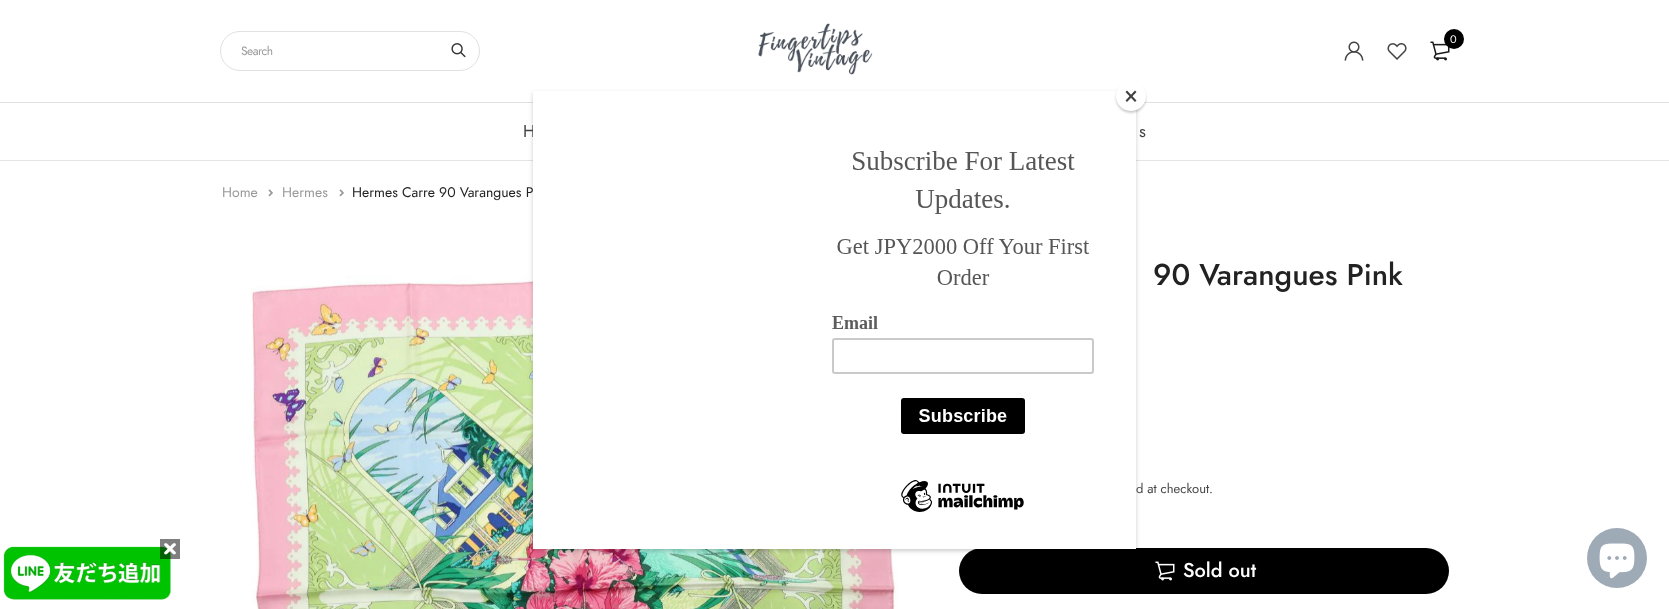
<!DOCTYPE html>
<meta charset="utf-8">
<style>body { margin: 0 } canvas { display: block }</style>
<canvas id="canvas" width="1669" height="609"></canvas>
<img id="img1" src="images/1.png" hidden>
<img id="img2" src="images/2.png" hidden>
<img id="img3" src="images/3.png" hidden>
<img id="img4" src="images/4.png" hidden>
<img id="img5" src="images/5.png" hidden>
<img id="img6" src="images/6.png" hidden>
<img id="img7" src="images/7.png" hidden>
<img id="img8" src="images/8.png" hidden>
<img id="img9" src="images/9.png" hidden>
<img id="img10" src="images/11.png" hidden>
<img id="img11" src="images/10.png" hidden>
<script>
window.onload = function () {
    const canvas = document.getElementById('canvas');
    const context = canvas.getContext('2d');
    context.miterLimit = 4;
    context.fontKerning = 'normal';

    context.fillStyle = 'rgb(255, 255, 255)';
    context.fillRect(0, 0, 1669, 609);
    context.fillStyle = 'rgb(229, 229, 229)';
    context.fillRect(0, 160, 1669, 1);
    context.drawImage(document.getElementById('img1'), 758, 23, 115, 52);
    context.drawImage(document.getElementById('img2'), 1430, 41, 20, 20);
    context.fillStyle = 'rgb(0, 0, 0)';
    context.beginPath();
    context.arc(1454, 39, 10, 0, 2 * Math.PI);
    context.fill();
    context.drawImage(document.getElementById('img3'), 1344, 41, 20, 20);
    context.drawImage(document.getElementById('img4'), 1387, 43, 20, 17);
    context.beginPath();
    context.roundRect(220.5, 31.5, 259, 39, 19.5);
    context.strokeStyle = 'rgb(225, 225, 225)';
    context.stroke();
    context.drawImage(document.getElementById('img5'), 451, 43, 15, 15);
    context.fillStyle = 'rgb(225, 225, 225)';
    context.fillRect(0, 102, 1669, 1);
    context.drawImage(document.getElementById('img6'), 268, 189, 5, 8);
    context.drawImage(document.getElementById('img6'), 339, 189, 5, 8);
    context.drawImage(document.getElementById('img7'), 251, 275, 647, 334);
    context.fillStyle = 'rgb(0, 0, 0)';
    context.beginPath();
    context.roundRect(959, 548, 490, 46, 23);
    context.fill();
    context.drawImage(document.getElementById('img8'), 1155, 561, 20, 20);
    context.drawImage(document.getElementById('img9'), 3, 546, 169, 54);
    context.fillStyle = 'rgba(0, 0, 0, 0.5)';
    context.fillRect(160, 539, 20, 20);
    context.fillStyle = 'rgb(255, 255, 255)';
    context.beginPath();
    context.moveTo(175.5, 543.5);
    context.bezierCurveTo(176, 544, 176, 545, 175.5, 545.5);
    context.lineTo(167, 554);
    context.bezierCurveTo(166, 554.5, 165.5, 554.5, 164.5, 554);
    context.bezierCurveTo(164, 553.5, 164, 552.5, 164.5, 552);
    context.lineTo(173, 543.5);
    context.bezierCurveTo(174, 543, 174.5, 543, 175.5, 543.5);
    context.closePath();
    context.fill();
    context.beginPath();
    context.moveTo(164.5, 543.5);
    context.bezierCurveTo(165.5, 543, 166, 543, 167, 543.5);
    context.lineTo(175.5, 552);
    context.bezierCurveTo(176, 552.5, 176, 553.5, 175.5, 554);
    context.bezierCurveTo(174.5, 554.5, 174, 554.5, 173, 554);
    context.lineTo(164.5, 545.5);
    context.bezierCurveTo(164, 545, 164, 544, 164.5, 543.5);
    context.closePath();
    context.fill();
    context.save();
    context.beginPath();
    context.moveTo(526, 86);
    context.lineTo(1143, 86);
    context.lineTo(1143, 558);
    context.lineTo(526, 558);
    context.closePath();
    context.moveTo(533, 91);
    context.lineTo(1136, 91);
    context.lineTo(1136, 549);
    context.lineTo(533, 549);
    context.closePath();
    context.clip('evenodd');
    context.fillStyle = 'rgba(0, 0, 0, 0.2)';
    context.filter = 'blur(2px)';
    context.beginPath();
    context.rect(533, 93, 603, 458);
    context.fill();
    context.filter = 'none';
    context.restore();
    context.fillStyle = 'rgb(159, 170, 183)';
    context.beginPath();
    context.arc(1617, 558, 30, 0, 2 * Math.PI);
    context.fill();
    context.drawImage(document.getElementById('img10'), 1599, 543, 36, 36);
    context.letterSpacing = '-0.5px';
    context.font = '11px Jost';
    context.fillStyle = 'rgb(255, 255, 255)';
    context.fillText('0', 1450, 43);
    context.font = '12px Jost';
    context.fillStyle = 'rgb(153, 153, 153)';
    context.fillText('Search', 241, 55);
    context.font = '17px Jost';
    context.fillStyle = 'rgb(68, 68, 68)';
    context.fillText('H', 523, 137);
    context.fillText('s', 1139, 137);
    context.letterSpacing = '0px';
    context.font = '14px Jost';
    context.fillStyle = 'rgb(153, 153, 153)';
    context.fillText('Home', 222, 197);
    context.fillText('Hermes', 282, 197);
    context.fillStyle = 'rgb(34, 34, 34)';
    context.fillText('Hermes Carre 90 Varangues P', 352, 197);
    context.font = '500 30px Jost';
    context.fillText('90 Varangues Pink', 1153, 285);
    context.font = '13px Jost';
    context.fillStyle = 'rgb(68, 68, 68)';
    context.fillText('d at checkout.', 1136, 493);
    context.font = '500 20px Jost';
    context.fillStyle = 'rgb(255, 255, 255)';
    context.fillText('Sold out', 1183, 577);
    context.drawImage(document.getElementById('img11'), 533, 102, 603, 447);
    context.fillStyle = 'rgba(0, 0, 0, 0.2)';
    context.filter = 'blur(1px)';
    context.beginPath();
    context.roundRect(1116, 83, 30, 30, 15);
    context.fill();
    context.filter = 'none';
    context.fillStyle = 'rgb(255, 255, 255)';
    context.beginPath();
    context.arc(1131, 96, 15, 0, 2 * Math.PI);
    context.fill();
    context.fillStyle = 'rgb(65, 65, 65)';
    context.beginPath();
    context.moveTo(1135, 90.5);
    context.lineTo(1136.5, 92);
    context.lineTo(1127, 102);
    context.lineTo(1125.5, 100.5);
    context.closePath();
    context.fill();
    context.beginPath();
    context.moveTo(1125.5, 92);
    context.lineTo(1127, 90.5);
    context.lineTo(1136.5, 100.5);
    context.lineTo(1135, 102);
    context.closePath();
    context.fill();
};
</script>
